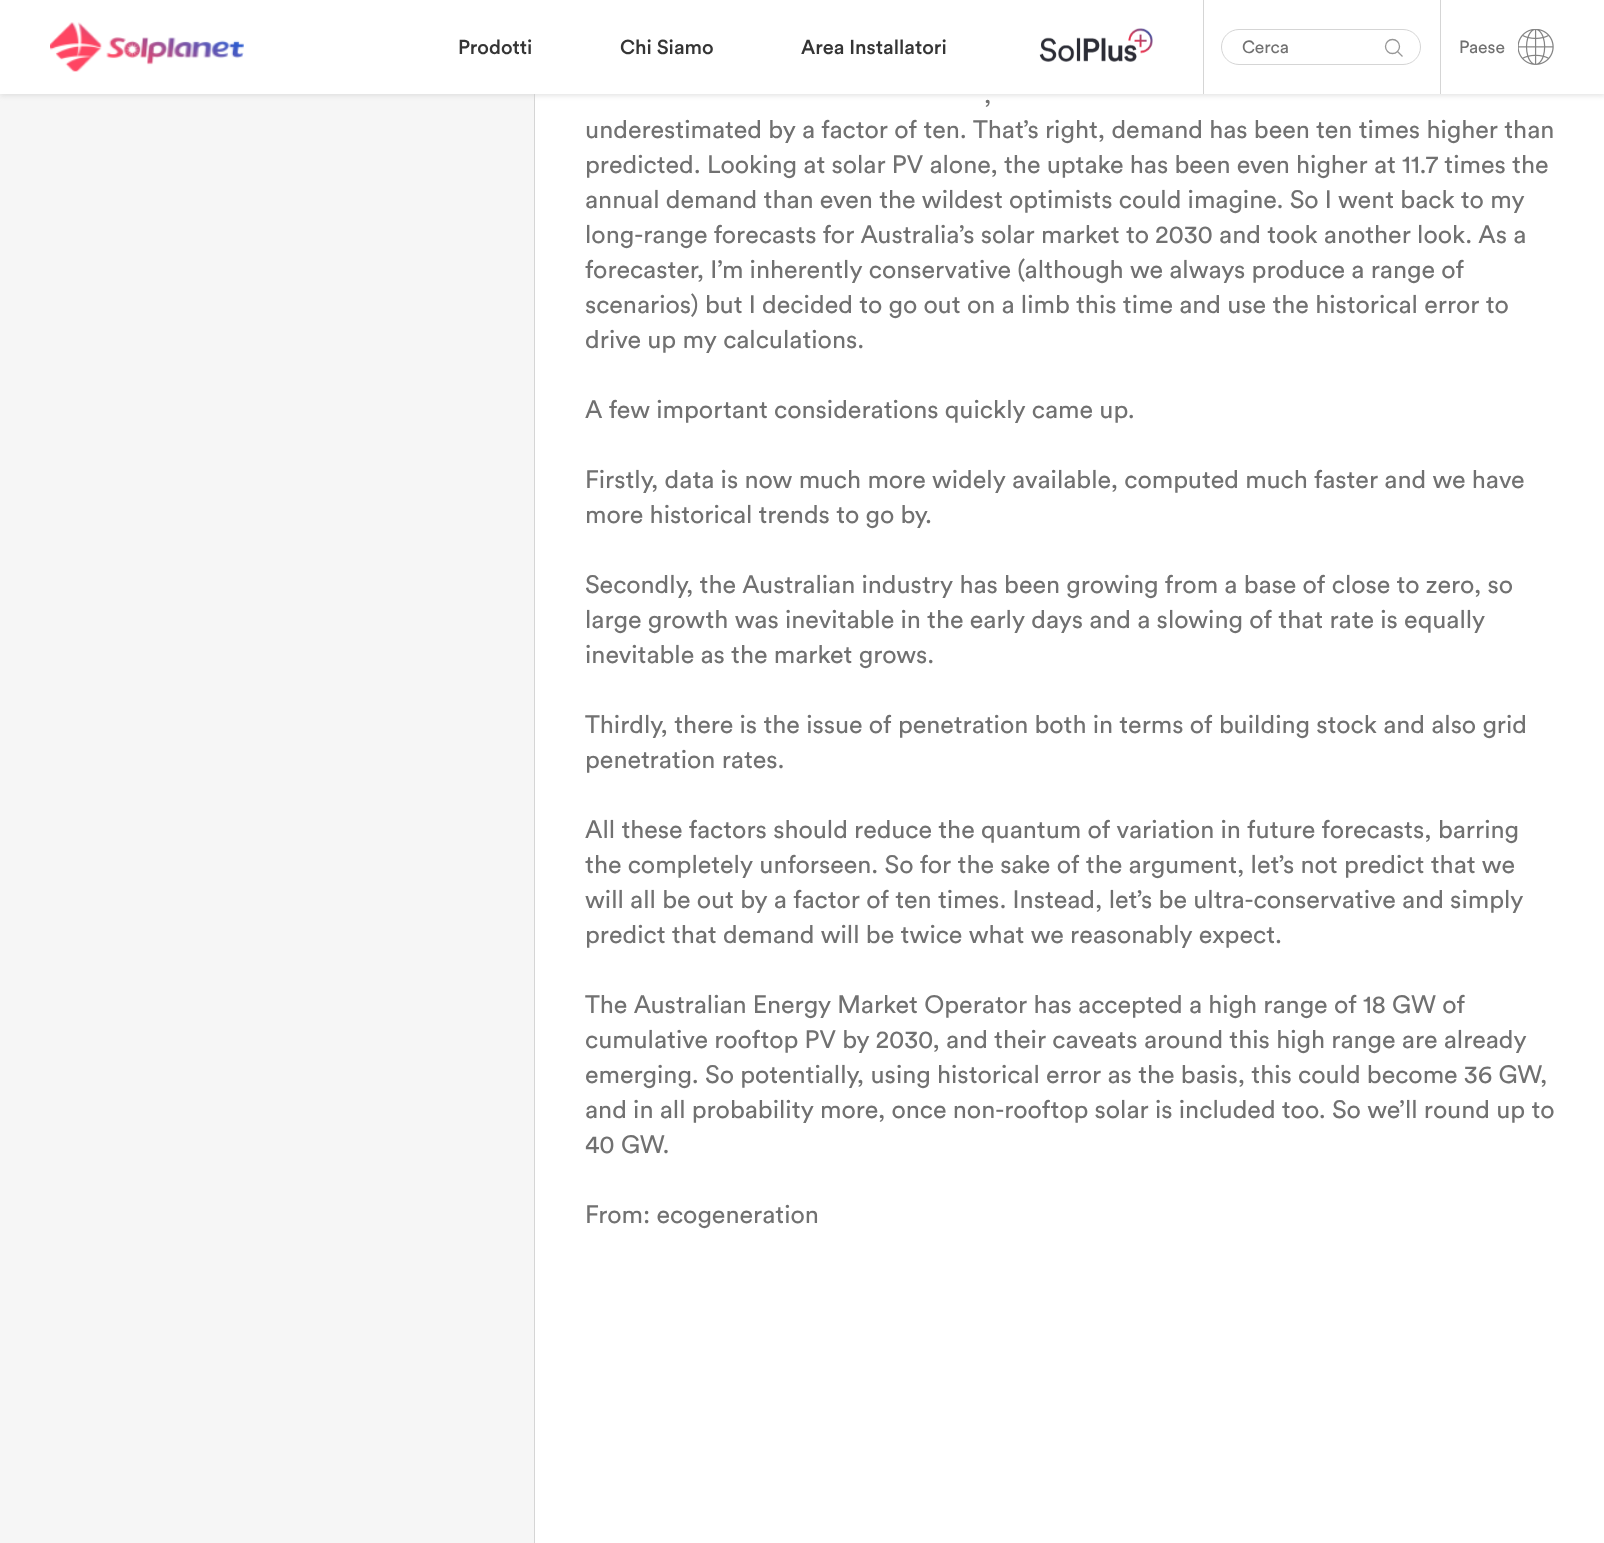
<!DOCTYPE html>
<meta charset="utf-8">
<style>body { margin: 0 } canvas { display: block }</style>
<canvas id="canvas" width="1604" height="1543"></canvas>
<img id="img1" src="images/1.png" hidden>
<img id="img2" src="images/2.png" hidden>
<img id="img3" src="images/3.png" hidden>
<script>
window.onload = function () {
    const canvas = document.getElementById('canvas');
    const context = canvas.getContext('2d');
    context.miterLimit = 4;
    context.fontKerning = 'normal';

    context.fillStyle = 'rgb(255, 255, 255)';
    context.fillRect(0, 0, 1604, 1543);
    context.fillStyle = 'rgb(246, 246, 246)';
    context.fillRect(0, 94, 534, 1449);
    context.fillStyle = 'rgb(213, 213, 213)';
    context.fillRect(534, 94, 1, 1449);
    context.fillStyle = 'rgba(204, 204, 204, 0.5)';
    context.filter = 'blur(2.5px)';
    context.beginPath();
    context.rect(0, 3, 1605, 93);
    context.fill();
    context.filter = 'none';
    context.fillStyle = 'rgb(255, 255, 255)';
    context.fillRect(0, 0, 1604, 94);
    context.drawImage(document.getElementById('img1'), 50, 22, 194, 50);
    context.drawImage(document.getElementById('img2'), 1039, 28, 114, 34);
    context.fillStyle = 'rgb(213, 213, 213)';
    context.fillRect(1203, 0, 1, 94);
    context.beginPath();
    context.roundRect(1221.5, 29.5, 199, 35, 17.5);
    context.strokeStyle = 'rgb(213, 213, 213)';
    context.stroke();
    context.beginPath();
    context.arc(1392.5, 46.5, 7, 0, 2 * Math.PI);
    context.strokeStyle = 'rgb(151, 151, 151)';
    context.lineWidth = 1.3;
    context.stroke();
    context.beginPath();
    context.moveTo(1397.5, 51.5);
    context.lineTo(1402.5, 56.5);
    context.stroke();
    context.fillRect(1440, 0, 1, 94);
    context.drawImage(document.getElementById('img3'), 1518, 29, 36, 36);
    context.font = '500 20px Circular';
    context.fillStyle = 'rgb(53, 53, 53)';
    context.fillText('Prodotti', 458, 54);
    context.fillText('Chi Siamo', 620, 54);
    context.fillText('Area Installatori', 801, 54);
    context.font = '17.5px Circular';
    context.fillStyle = 'rgb(113, 113, 113)';
    context.fillText('Cerca', 1242, 53);
    context.fillText('Paese', 1459, 53);
    context.font = '25px Circular';
    context.fillText(',', 984, 103);
    context.fillText('underestimated by a factor of ten. That’s right, demand has been ten times higher than', 585, 138);
    context.fillText('predicted. Looking at solar PV alone, the uptake has been even higher at 11.7 times the', 585, 173);
    context.fillText('annual demand than even the wildest optimists could imagine. So I went back to my', 585, 208);
    context.fillText('long-range forecasts for Australia’s solar market to 2030 and took another look. As a', 585, 243);
    context.fillText('forecaster, I’m inherently conservative (although we always produce a range of', 585, 278);
    context.fillText('scenarios) but I decided to go out on a limb this time and use the historical error to', 585, 313);
    context.fillText('drive up my calculations.', 585, 348);
    context.fillText('A few important considerations quickly came up.', 585, 418);
    context.fillText('Firstly, data is now much more widely available, computed much faster and we have', 585, 488);
    context.fillText('more historical trends to go by.', 585, 523);
    context.fillText('Secondly, the Australian industry has been growing from a base of close to zero, so', 585, 593);
    context.fillText('large growth was inevitable in the early days and a slowing of that rate is equally', 585, 628);
    context.fillText('inevitable as the market grows.', 585, 663);
    context.fillText('Thirdly, there is the issue of penetration both in terms of building stock and also grid', 585, 733);
    context.fillText('penetration rates.', 585, 768);
    context.fillText('All these factors should reduce the quantum of variation in future forecasts, barring', 585, 838);
    context.fillText('the completely unforseen. So for the sake of the argument, let’s not predict that we', 585, 873);
    context.fillText('will all be out by a factor of ten times. Instead, let’s be ultra-conservative and simply', 585, 908);
    context.fillText('predict that demand will be twice what we reasonably expect.', 585, 943);
    context.fillText('The Australian Energy Market Operator has accepted a high range of 18 GW of', 585, 1013);
    context.fillText('cumulative rooftop PV by 2030, and their caveats around this high range are already', 585, 1048);
    context.fillText('emerging. So potentially, using historical error as the basis, this could become 36 GW,', 585, 1083);
    context.fillText('and in all probability more, once non-rooftop solar is included too. So we’ll round up to', 585, 1118);
    context.fillText('40 GW.', 585, 1153);
    context.fillText('From: ecogeneration', 585, 1223);
};
</script>
